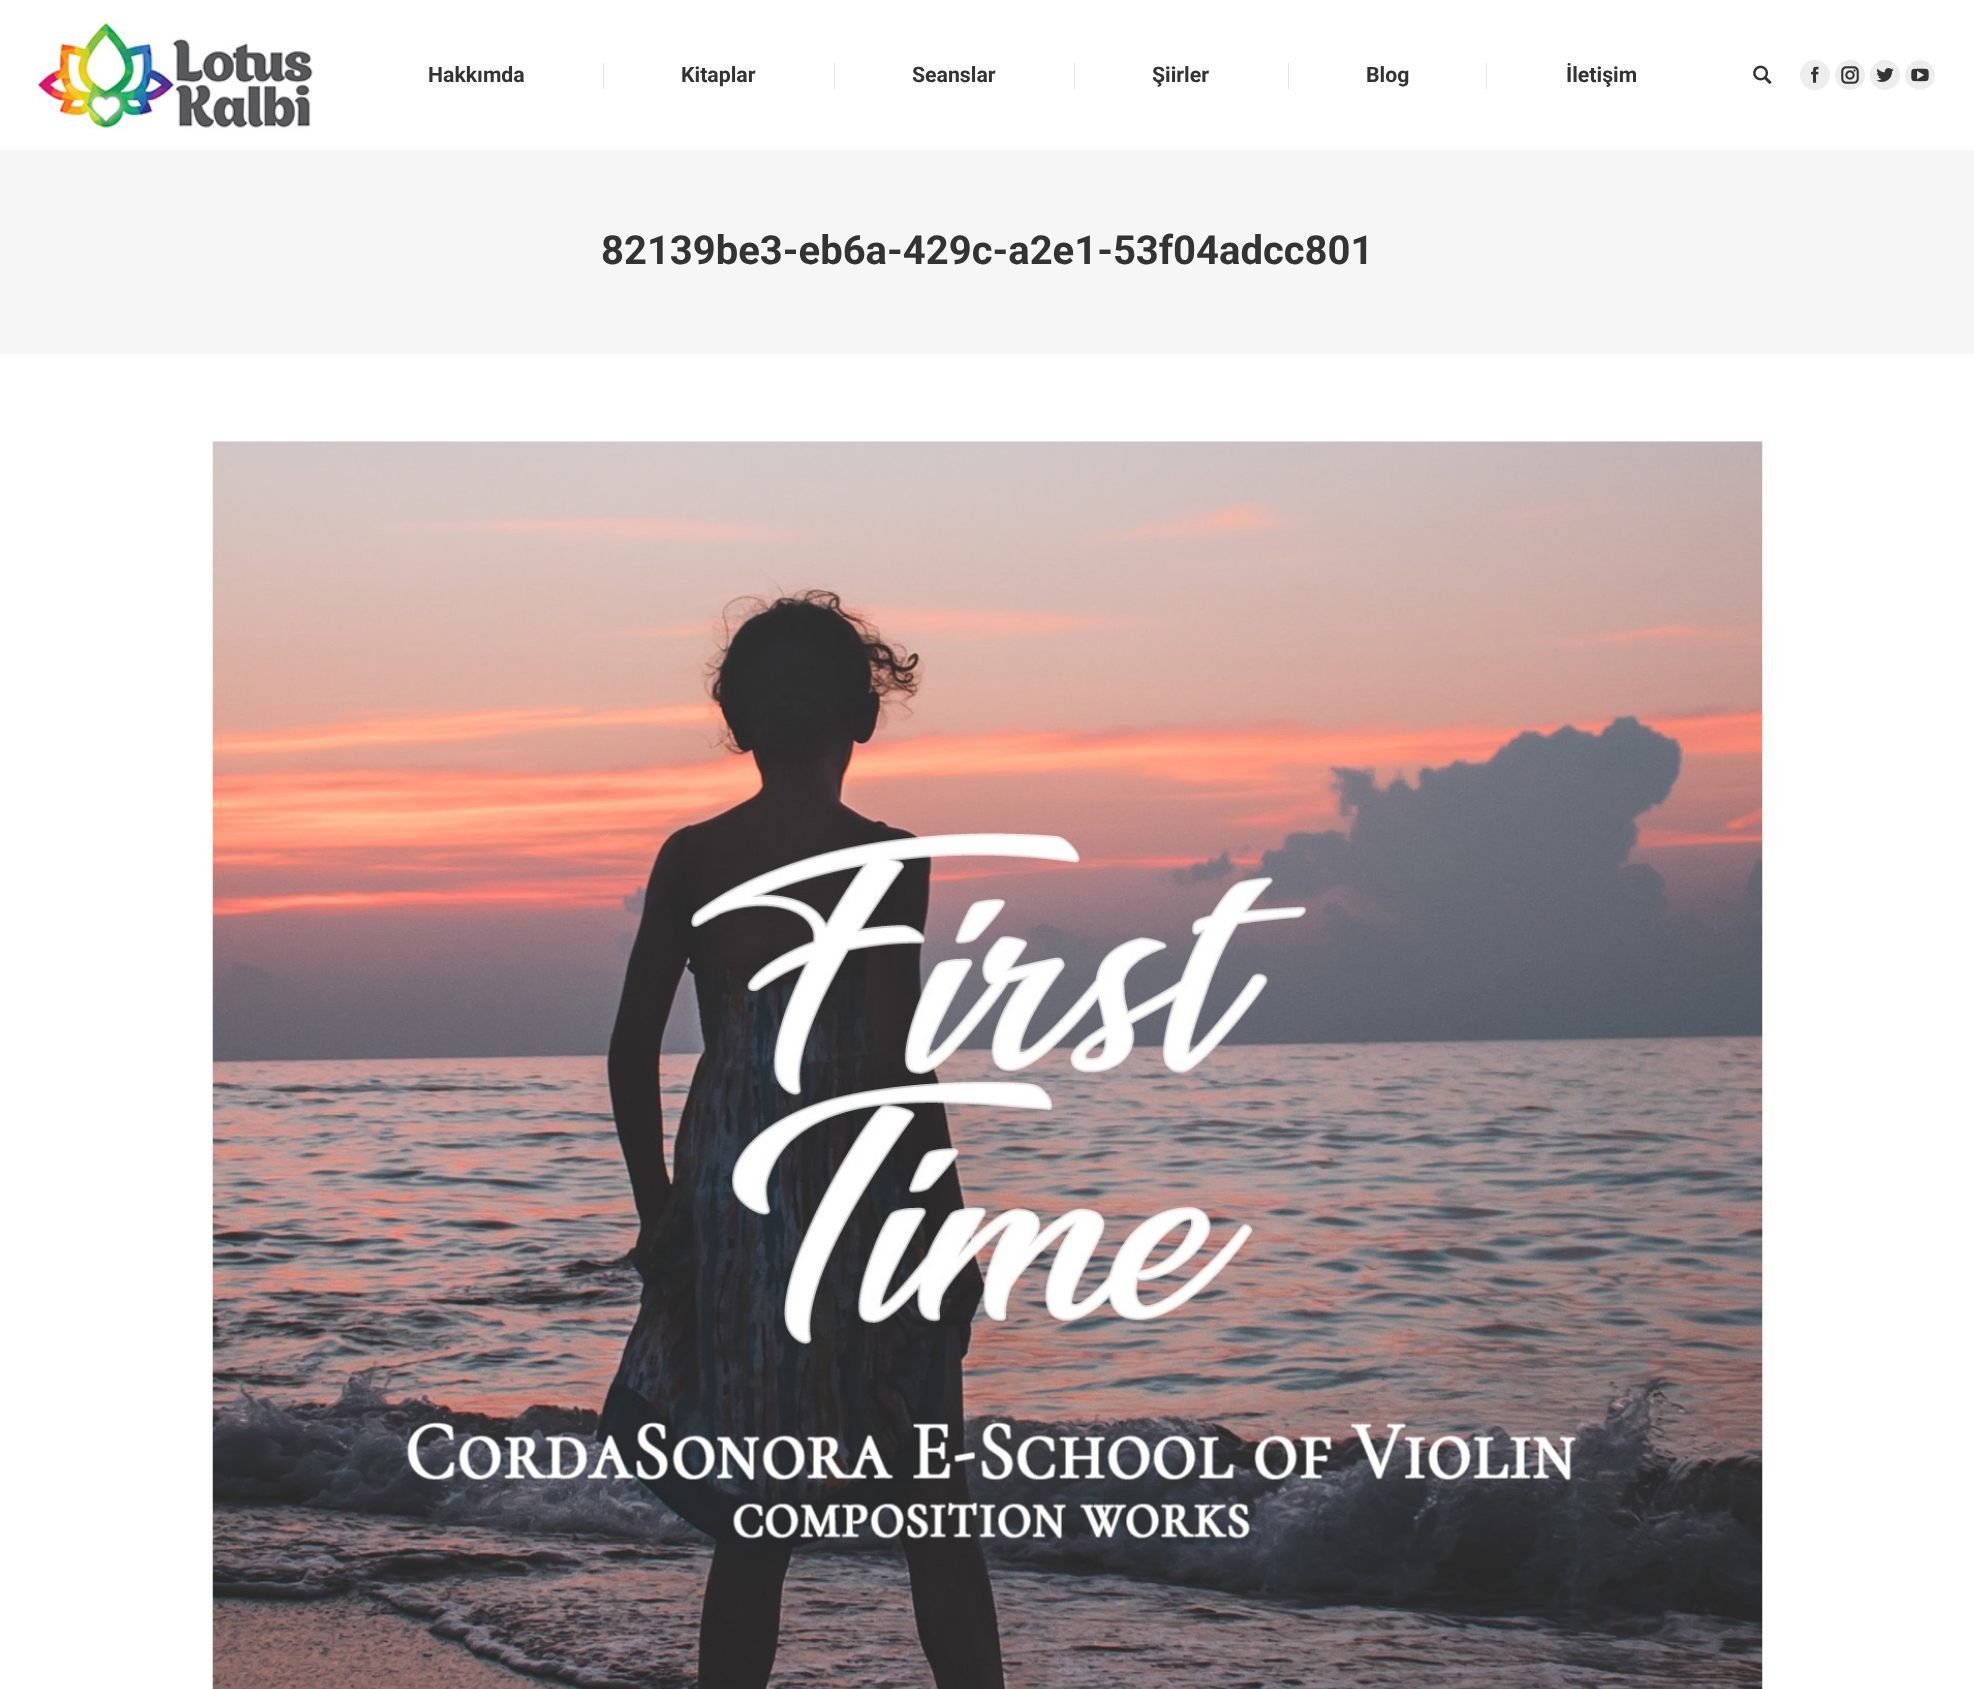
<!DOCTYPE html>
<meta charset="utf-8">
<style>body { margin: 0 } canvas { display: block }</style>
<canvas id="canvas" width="1974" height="1689"></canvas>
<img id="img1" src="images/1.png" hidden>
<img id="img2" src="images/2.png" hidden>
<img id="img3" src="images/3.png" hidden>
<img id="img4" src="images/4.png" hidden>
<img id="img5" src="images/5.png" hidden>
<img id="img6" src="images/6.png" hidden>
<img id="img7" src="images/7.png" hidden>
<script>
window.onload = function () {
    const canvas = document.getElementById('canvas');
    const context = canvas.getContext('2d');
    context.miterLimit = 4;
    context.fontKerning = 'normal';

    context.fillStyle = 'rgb(255, 255, 255)';
    context.fillRect(0, 0, 1974, 1689);
    context.drawImage(document.getElementById('img1'), 37, 21, 276, 109);
    context.fillStyle = 'rgb(230, 230, 230)';
    context.fillRect(603, 63, 1, 26);
    context.fillRect(834, 63, 1, 26);
    context.fillRect(1074, 63, 1, 26);
    context.fillRect(1288, 63, 1, 26);
    context.fillRect(1486, 63, 1, 26);
    context.drawImage(document.getElementById('img2'), 1753, 65, 19, 20);
    context.fillStyle = 'rgb(237, 237, 237)';
    context.beginPath();
    context.arc(1815, 75, 15, 0, 2 * Math.PI);
    context.fill();
    context.drawImage(document.getElementById('img3'), 1811, 66, 8, 17);
    context.beginPath();
    context.arc(1850, 75, 15, 0, 2 * Math.PI);
    context.fill();
    context.drawImage(document.getElementById('img4'), 1841, 66, 18, 18);
    context.beginPath();
    context.arc(1885, 75, 15, 0, 2 * Math.PI);
    context.fill();
    context.drawImage(document.getElementById('img5'), 1876, 68, 18, 14);
    context.beginPath();
    context.arc(1920, 75, 15, 0, 2 * Math.PI);
    context.fill();
    context.drawImage(document.getElementById('img6'), 1911, 68, 18, 14);
    context.fillStyle = 'rgb(246, 246, 246)';
    context.fillRect(0, 150, 1974, 204);
    context.drawImage(document.getElementById('img7'), 212, 441, 1551, 1248);
    context.font = 'bold 21.25px Roboto';
    context.fillStyle = 'rgb(51, 51, 51)';
    context.fillText('Hakkımda', 428, 82);
    context.fillText('Kitaplar', 681, 82);
    context.fillText('Seanslar', 912, 82);
    context.fillText('Şiirler', 1152, 82);
    context.fillText('Blog', 1366, 82);
    context.fillText('İletişim', 1566, 82);
    context.font = 'bold 40px Roboto';
    context.fillText('82139be3-eb6a-429c-a2e1-53f04adcc801', 601, 264);
};
</script>
